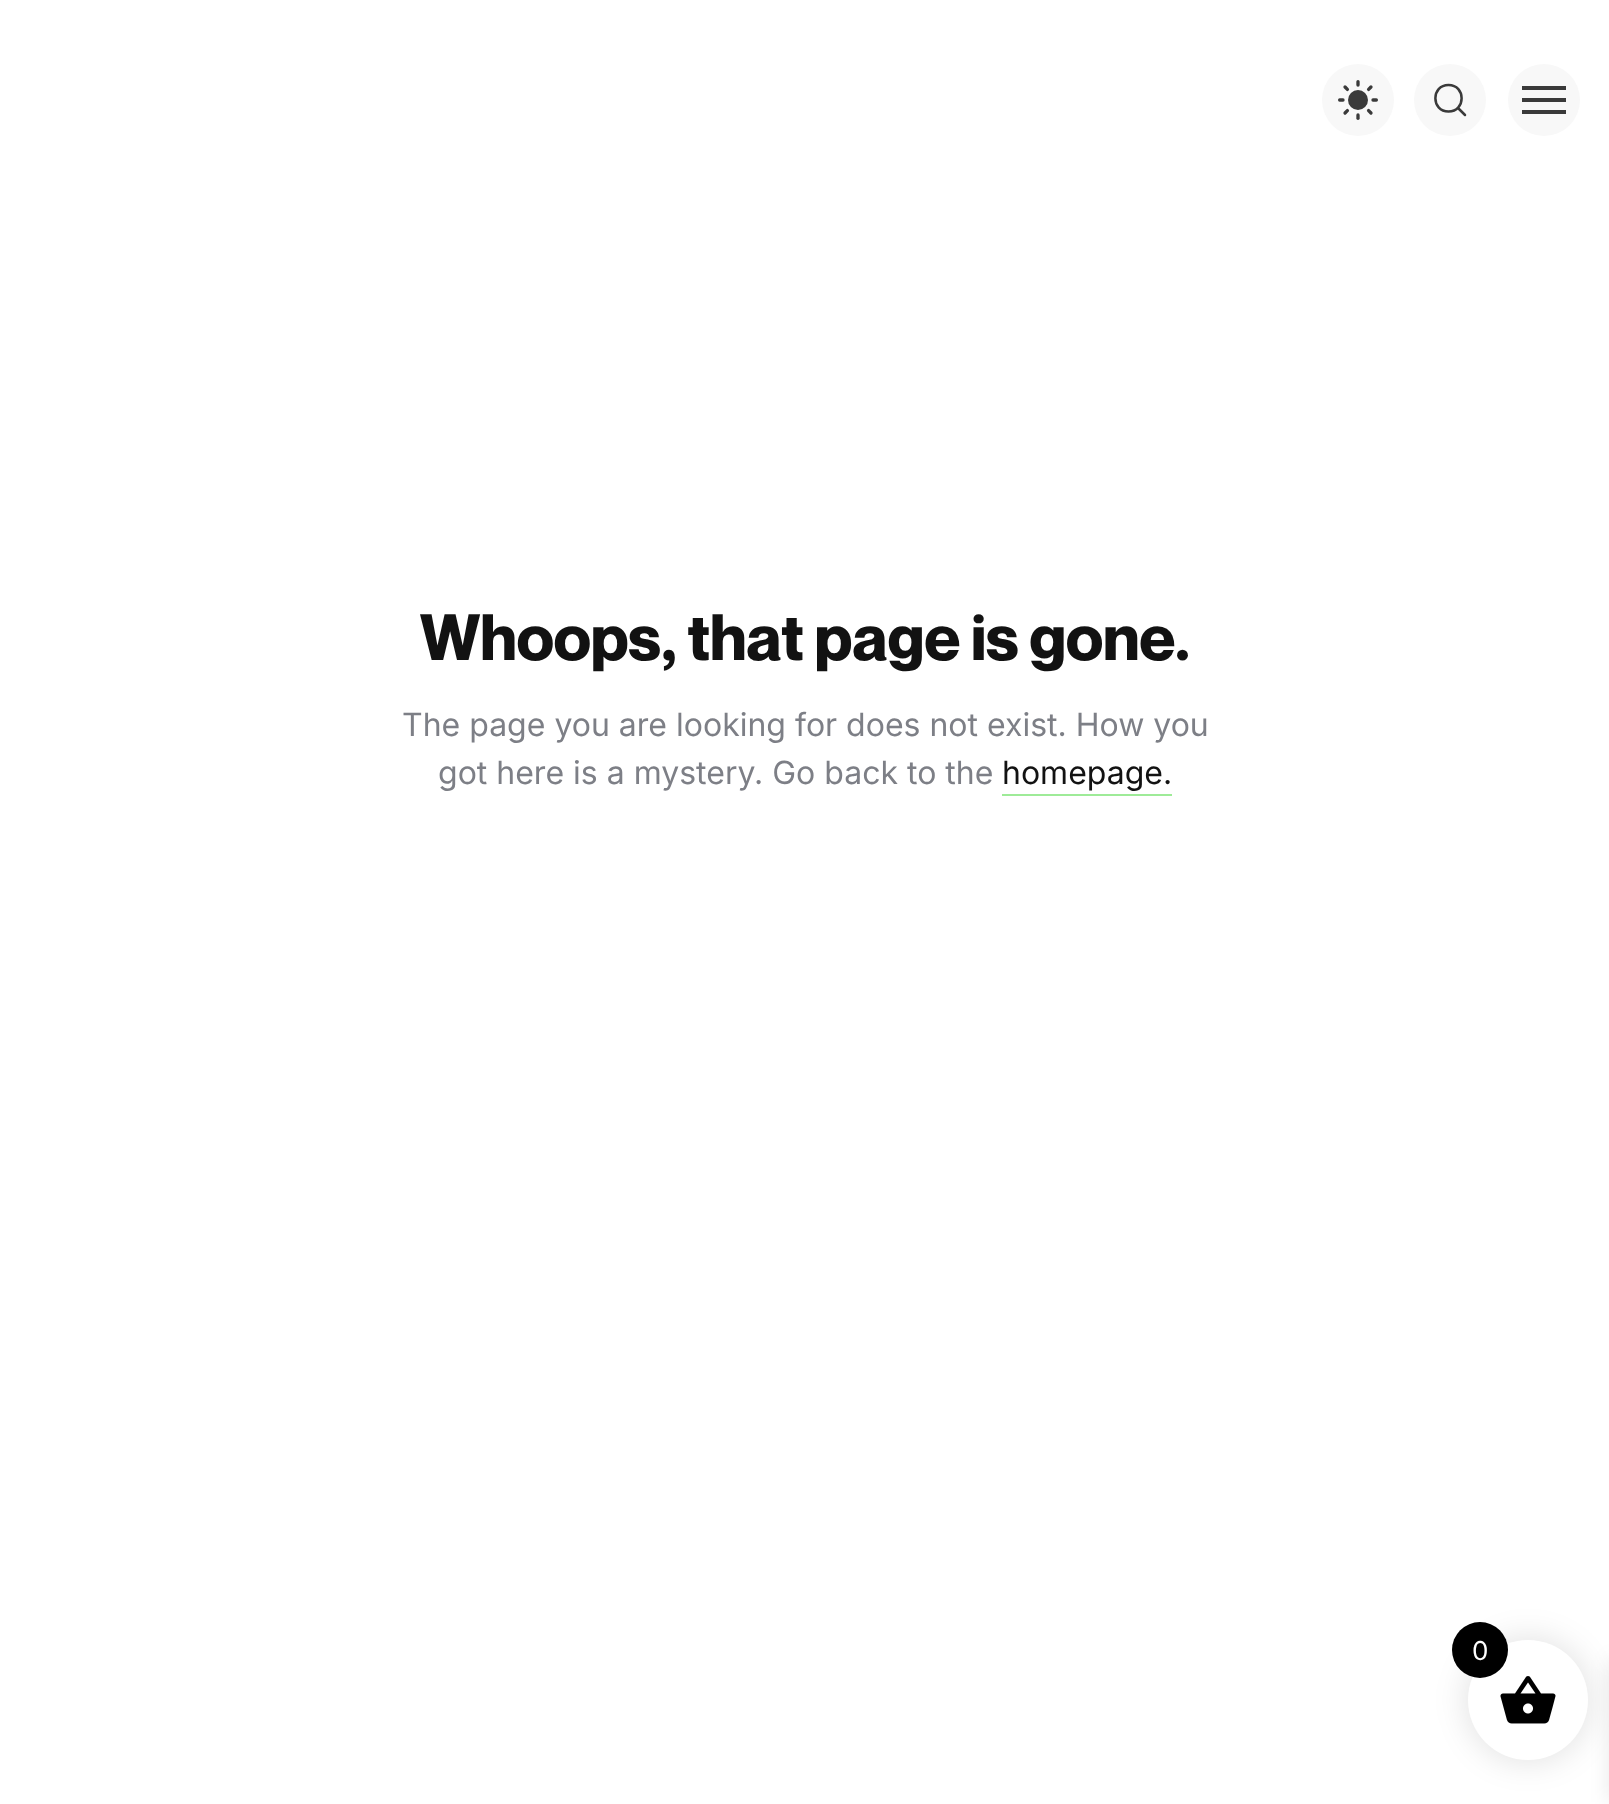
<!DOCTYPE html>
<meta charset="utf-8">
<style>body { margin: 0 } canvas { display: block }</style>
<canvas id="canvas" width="1609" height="1804"></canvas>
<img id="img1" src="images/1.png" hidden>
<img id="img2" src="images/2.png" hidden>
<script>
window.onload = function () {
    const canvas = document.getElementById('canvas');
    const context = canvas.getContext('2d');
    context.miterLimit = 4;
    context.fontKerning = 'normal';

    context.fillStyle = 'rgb(255, 255, 255)';
    context.fillRect(0, 0, 1609, 1804);
    context.fillStyle = 'rgb(248, 248, 248)';
    context.beginPath();
    context.arc(1358, 100, 36, 0, 2 * Math.PI);
    context.fill();
    context.drawImage(document.getElementById('img1'), 1338, 80, 40, 40);
    context.beginPath();
    context.arc(1450, 100, 36, 0, 2 * Math.PI);
    context.fill();
    context.beginPath();
    context.moveTo(1448.5, 111.5);
    context.bezierCurveTo(1466, 111.5, 1466, 85, 1448.5, 85);
    context.bezierCurveTo(1431, 85, 1431, 111.5, 1448.5, 111.5);
    context.closePath();
    context.moveTo(1465, 115);
    context.lineTo(1458, 108);
    context.strokeStyle = 'rgb(58, 58, 58)';
    context.lineWidth = 2.5;
    context.lineCap = 'round';
    context.lineJoin = 'round';
    context.stroke();
    context.beginPath();
    context.arc(1544, 100, 36, 0, 2 * Math.PI);
    context.fill();
    context.fillStyle = 'rgb(58, 58, 58)';
    context.fillRect(1522, 98, 44, 4);
    context.fillRect(1522, 86, 44, 4);
    context.fillRect(1522, 110, 44, 4);
    context.fillStyle = 'rgb(158, 235, 152)';
    context.fillRect(1002, 794, 170, 2);
    context.fillStyle = 'rgba(0, 0, 0, 0.1)';
    context.filter = 'blur(15px)';
    context.beginPath();
    context.roundRect(1464, 1636, 128, 128, 64);
    context.fill();
    context.filter = 'none';
    context.filter = 'blur(10px)';
    context.beginPath();
    context.rect(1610, 1660, 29, 142);
    context.fill();
    context.filter = 'none';
    context.fillStyle = 'rgb(255, 255, 255)';
    context.beginPath();
    context.arc(1528, 1700, 60, 0, 2 * Math.PI);
    context.fill();
    context.drawImage(document.getElementById('img2'), 1500, 1676, 56, 48);
    context.fillStyle = 'rgb(0, 0, 0)';
    context.beginPath();
    context.arc(1480, 1650, 28, 0, 2 * Math.PI);
    context.fill();
    context.font = 'bold 64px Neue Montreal';
    context.fillStyle = 'rgb(18, 18, 18)';
    context.fillText('Whoops, that page is gone.', 420, 660);
    context.font = '32px Inter';
    context.fillStyle = 'rgb(125, 127, 134)';
    context.fillText('The page you are looking for does not exist. How you', 402, 736);
    context.fillText('got here is a mystery. Go back to the', 438, 784);
    context.fillStyle = 'rgb(18, 18, 18)';
    context.fillText('homepage.', 1002, 784);
    context.font = '26px Inter';
    context.fillStyle = 'rgb(255, 255, 255)';
    context.fillText('0', 1472, 1660);
};
</script>
